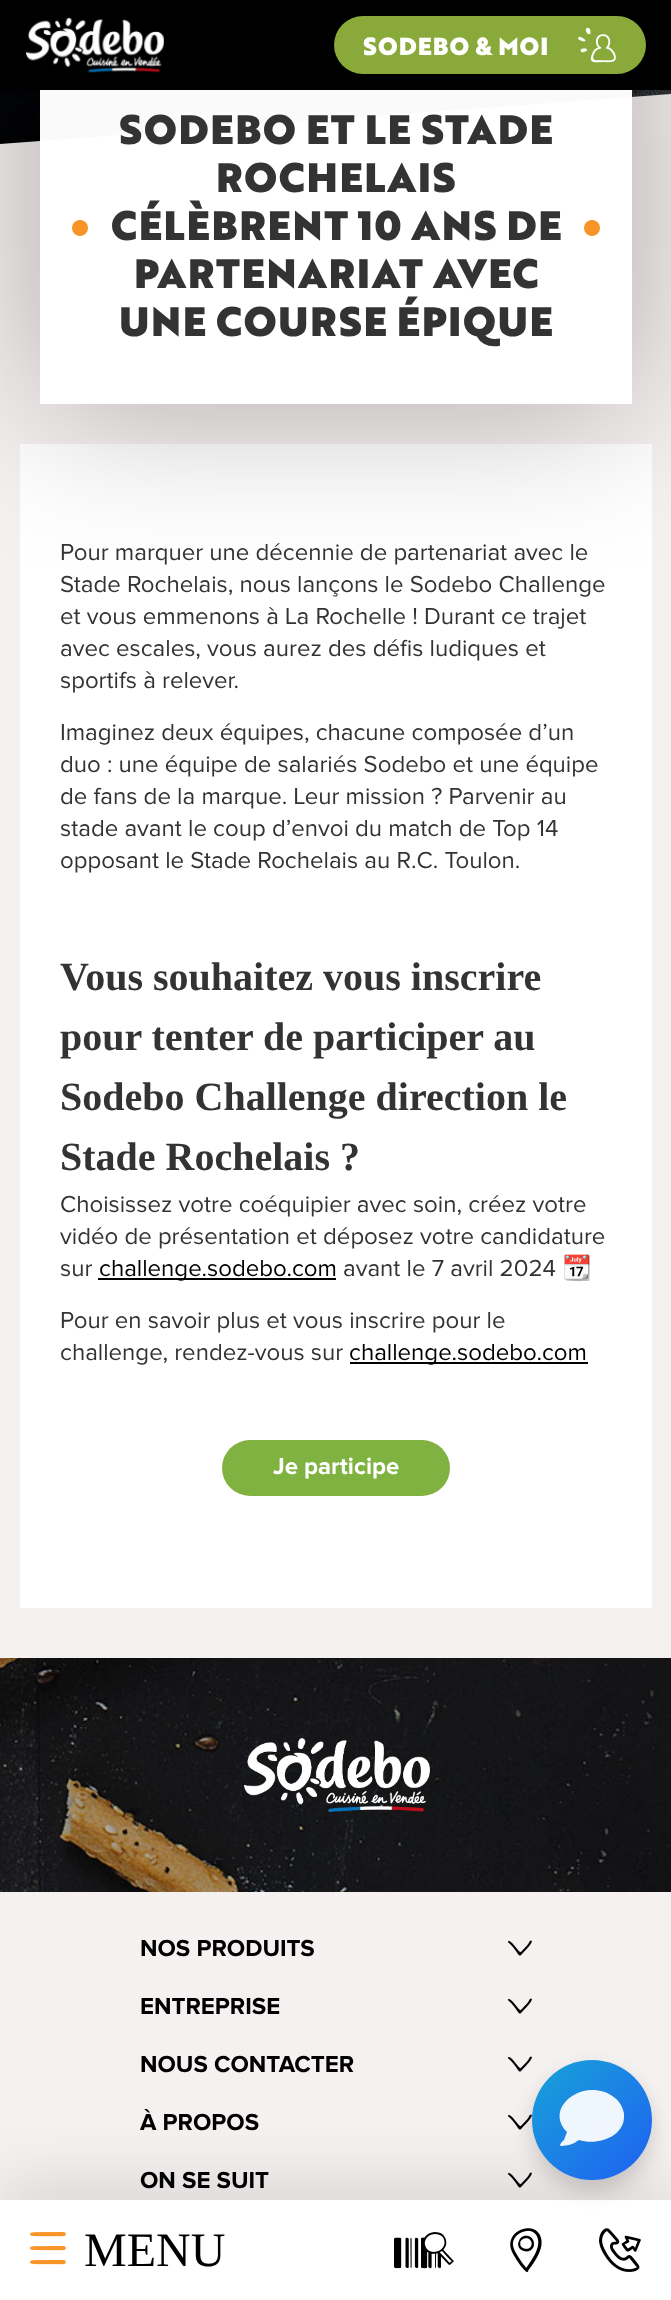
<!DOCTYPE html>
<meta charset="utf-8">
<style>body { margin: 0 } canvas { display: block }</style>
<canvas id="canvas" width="671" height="2300"></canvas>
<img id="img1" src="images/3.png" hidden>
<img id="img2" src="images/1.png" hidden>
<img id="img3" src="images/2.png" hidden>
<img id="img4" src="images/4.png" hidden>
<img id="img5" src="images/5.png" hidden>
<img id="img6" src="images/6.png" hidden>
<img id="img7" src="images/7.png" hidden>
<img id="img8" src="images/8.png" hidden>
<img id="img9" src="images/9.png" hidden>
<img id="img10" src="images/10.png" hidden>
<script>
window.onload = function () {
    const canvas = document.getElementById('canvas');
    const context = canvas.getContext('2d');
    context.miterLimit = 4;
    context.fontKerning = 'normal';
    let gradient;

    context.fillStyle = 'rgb(245, 241, 240)';
    context.fillRect(0, 0, 671, 2300);
    context.drawImage(document.getElementById('img1'), 0, 90, 671, 54);
    context.beginPath();
    context.moveTo(0, 144);
    context.lineTo(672, 144);
    context.lineTo(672, 94);
    context.fill();
    context.fillStyle = 'rgb(255, 255, 255)';
    context.fillRect(20, 444, 632, 1164);
    context.save();
    context.beginPath();
    context.moveTo(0, 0);
    context.lineTo(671, 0);
    context.lineTo(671, 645);
    context.lineTo(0, 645);
    context.closePath();
    context.moveTo(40, -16);
    context.lineTo(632, -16);
    context.lineTo(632, 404);
    context.lineTo(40, 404);
    context.closePath();
    context.clip('evenodd');
    context.fillStyle = 'rgba(0, 0, 0, 0.3)';
    context.filter = 'blur(80px)';
    context.beginPath();
    context.rect(40, -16, 592, 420);
    context.fill();
    context.filter = 'none';
    context.restore();
    context.fillStyle = 'rgb(0, 0, 0)';
    context.fillRect(0, 0, 671, 90);
    context.drawImage(document.getElementById('img2'), 26, 17, 138, 56);
    context.fillStyle = 'rgb(137, 170, 59)';
    context.beginPath();
    context.roundRect(334, 16, 312, 58, 29);
    context.fill();
    context.drawImage(document.getElementById('img3'), 578, 27, 38, 36);
    context.fillStyle = 'rgba(255, 255, 255, 0.98)';
    context.fillRect(40, 90, 592, 314);
    context.fillStyle = 'rgb(249, 148, 38)';
    context.beginPath();
    context.arc(80, 228, 8, 0, 2 * Math.PI);
    context.fill();
    context.beginPath();
    context.arc(592, 228, 8, 0, 2 * Math.PI);
    context.fill();
    context.fillStyle = 'rgb(0, 0, 0)';
    context.fillRect(98, 1278, 238, 2);
    context.fillRect(350, 1362, 238, 2);
    context.fillStyle = 'rgb(127, 178, 64)';
    context.beginPath();
    context.roundRect(222, 1440, 228, 56, 28);
    context.fill();
    context.drawImage(document.getElementById('img4'), 0, 1658, 671, 234);
    context.drawImage(document.getElementById('img5'), 244, 1738, 186, 74);
    context.drawImage(document.getElementById('img6'), 508, 1940, 24, 16);
    context.drawImage(document.getElementById('img6'), 508, 1998, 24, 16);
    context.drawImage(document.getElementById('img6'), 508, 2056, 24, 16);
    context.drawImage(document.getElementById('img6'), 508, 2114, 24, 16);
    context.drawImage(document.getElementById('img6'), 508, 2172, 24, 16);
    context.fillStyle = 'rgba(0, 0, 0, 0.1)';
    context.filter = 'blur(30px)';
    context.beginPath();
    context.rect(0, 2180, 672, 100);
    context.fill();
    context.filter = 'none';
    context.fillStyle = 'rgb(255, 255, 255)';
    context.fillRect(0, 2200, 671, 100);
    context.drawImage(document.getElementById('img7'), 30, 2232, 36, 33);
    context.drawImage(document.getElementById('img8'), 394, 2232, 60, 37);
    context.drawImage(document.getElementById('img9'), 510, 2228, 32, 44);
    context.drawImage(document.getElementById('img10'), 599, 2228, 42, 44);
    context.fillStyle = 'rgba(0, 0, 0, 0.16)';
    context.filter = 'blur(10px)';
    context.beginPath();
    context.roundRect(532, 2070, 120, 120, 60);
    context.fill();
    context.filter = 'none';
    gradient = context.createLinearGradient(532, 2060, 652, 2180);
    gradient.addColorStop(0, 'rgb(23, 163, 216)');
    gradient.addColorStop(1, 'rgb(31, 96, 242)');
    context.fillStyle = gradient;
    context.beginPath();
    context.arc(592, 2120, 60, 0, 2 * Math.PI);
    context.fill();
    context.fillStyle = 'rgba(255, 255, 255, 0.93)';
    context.beginPath();
    context.moveTo(592, 2090);
    context.bezierCurveTo(569, 2090, 548, 2113, 567, 2132);
    context.lineTo(564, 2140);
    context.bezierCurveTo(563, 2141, 557, 2146, 562, 2146);
    context.lineTo(569, 2145);
    context.bezierCurveTo(573, 2144, 576, 2142, 579, 2140);
    context.bezierCurveTo(597, 2146, 626, 2137, 624, 2114);
    context.bezierCurveTo(623, 2108, 620, 2102, 615, 2098);
    context.bezierCurveTo(608, 2092, 600, 2090, 592, 2090);
    context.closePath();
    context.fill();
    context.font = '900 24px "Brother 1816"';
    context.fillStyle = 'rgb(255, 255, 255)';
    context.fillText('SODEBO & MOI', 363, 55);
    context.font = '900 40px "Brother 1816"';
    context.fillStyle = 'rgb(51, 51, 51)';
    context.fillText('SODEBO ET LE STADE', 119, 144);
    context.fillText('ROCHELAIS', 216, 192);
    context.fillText('CÉLÈBRENT 10 ANS DE', 111, 240);
    context.fillText('PARTENARIAT AVEC', 134, 288);
    context.fillText('UNE COURSE ÉPIQUE', 119, 336);
    context.font = '24px Proxima Nova';
    context.fillText('Pour marquer une décennie de partenariat avec le', 60, 560);
    context.fillText('Stade Rochelais, nous lançons le Sodebo Challenge', 60, 592);
    context.fillText('et vous emmenons à La Rochelle ! Durant ce trajet', 60, 624);
    context.fillText('avec escales, vous aurez des défis ludiques et', 60, 656);
    context.fillText('sportifs à relever.', 60, 688);
    context.fillText('Imaginez deux équipes, chacune composée d’un', 60, 740);
    context.fillText('duo : une équipe de salariés Sodebo et une équipe', 60, 772);
    context.fillText('de fans de la marque. Leur mission ? Parvenir au', 60, 804);
    context.fillText('stade avant le coup d’envoi du match de Top 14', 60, 836);
    context.fillText('opposant le Stade Rochelais au R.C. Toulon.', 60, 868);
    context.font = 'bold 40px Liberation Serif';
    context.fillText('Vous souhaitez vous inscrire', 60, 990);
    context.fillText('pour tenter de participer au', 60, 1050);
    context.fillText('Sodebo Challenge direction le', 60, 1110);
    context.fillText('Stade Rochelais ?', 60, 1170);
    context.font = '24px Proxima Nova';
    context.fillText('Choisissez votre coéquipier avec soin, créez votre', 60, 1212);
    context.fillText('vidéo de présentation et déposez votre candidature', 60, 1244);
    context.fillText('sur', 60, 1276);
    context.fillStyle = 'rgb(0, 0, 0)';
    context.fillText('challenge.sodebo.com', 99, 1276);
    context.fillStyle = 'rgb(51, 51, 51)';
    context.fillText('avant le 7 avril 2024', 343, 1276);
    context.font = '24px Noto Color Emoji';
    context.fillText('📆', 562, 1276);
    context.font = '24px Proxima Nova';
    context.fillText('Pour en savoir plus et vous inscrire pour le', 60, 1328);
    context.fillText('challenge, rendez-vous sur', 60, 1360);
    context.fillStyle = 'rgb(0, 0, 0)';
    context.fillText('challenge.sodebo.com', 349, 1360);
    context.font = 'bold 24px Proxima Nova';
    context.fillStyle = 'rgb(255, 255, 255)';
    context.fillText('Je participe', 273, 1474);
    context.fillStyle = 'rgb(0, 0, 0)';
    context.fillText('NOS PRODUITS', 140, 1956);
    context.fillText('ENTREPRISE', 140, 2014);
    context.fillText('NOUS CONTACTER', 140, 2072);
    context.fillText('À PROPOS', 140, 2130);
    context.fillText('ON SE SUIT', 140, 2188);
    context.font = '48px Liberation Serif';
    context.fillText('MENU', 84, 2266);
};
</script>
